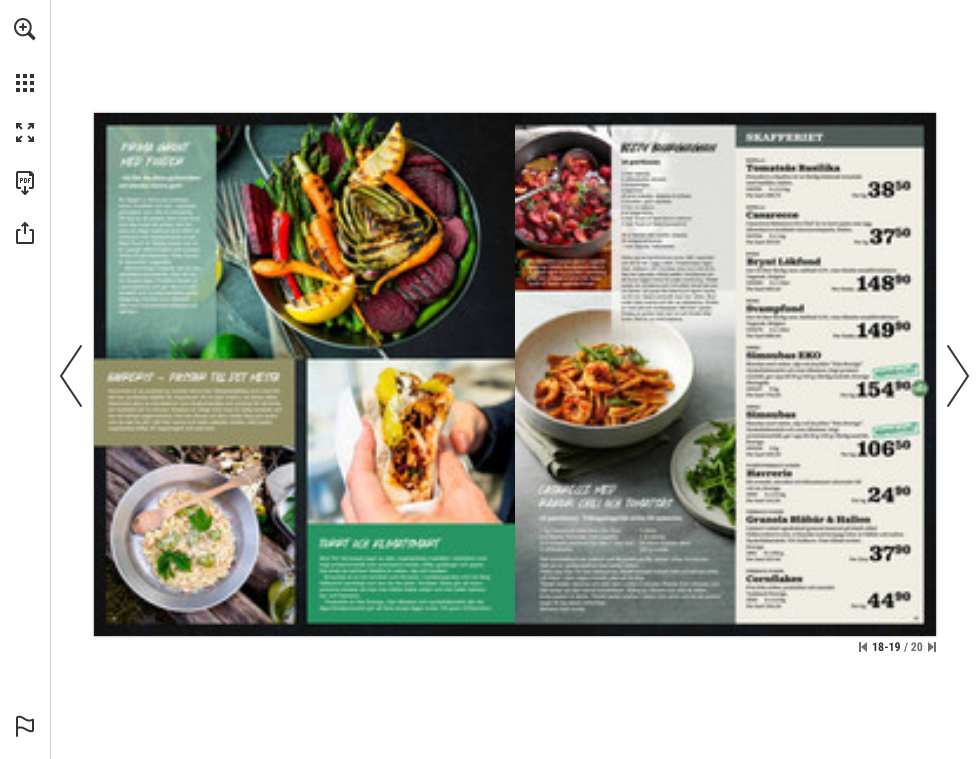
<!DOCTYPE html>
<meta charset="utf-8">
<style>body { margin: 0 } canvas { display: block }</style>
<canvas id="canvas" width="980" height="759"></canvas>
<img id="img1" src="images/1.png" hidden>
<img id="img2" src="images/2.png" hidden>
<img id="img3" src="images/3.png" hidden>
<img id="img4" src="images/4.png" hidden>
<img id="img5" src="images/5.png" hidden>
<img id="img6" src="images/6.png" hidden>
<img id="img7" src="images/7.png" hidden>
<img id="img8" src="images/8.png" hidden>
<img id="img9" src="images/9.png" hidden>
<img id="img10" src="images/10.png" hidden>
<img id="img11" src="images/11.png" hidden>
<img id="img12" src="images/12.png" hidden>
<img id="img13" src="images/13.png" hidden>
<script>
window.onload = function () {
    const canvas = document.getElementById('canvas');
    const context = canvas.getContext('2d');
    context.miterLimit = 4;
    context.fontKerning = 'normal';

    context.fillStyle = 'rgb(255, 255, 255)';
    context.fillRect(0, 0, 980, 759);
    context.fillStyle = 'rgba(0, 0, 0, 0.2)';
    context.filter = 'blur(0.5px)';
    context.beginPath();
    context.rect(1, 0, 50, 759);
    context.fill();
    context.filter = 'none';
    context.fillStyle = 'rgb(255, 255, 255)';
    context.fillRect(0, 0, 50, 759);
    context.drawImage(document.getElementById('img1'), 14, 18, 22, 23);
    context.drawImage(document.getElementById('img2'), 16, 74, 18, 18);
    context.drawImage(document.getElementById('img3'), 16, 123, 18, 19);
    context.drawImage(document.getElementById('img4'), 16, 171, 18, 24);
    context.drawImage(document.getElementById('img5'), 16, 222, 18, 22);
    context.drawImage(document.getElementById('img6'), 16, 715, 18, 22);
    context.fillStyle = 'rgba(18, 18, 18, 0.05)';
    context.filter = 'blur(1px)';
    context.beginPath();
    context.roundRect(92, 111, 846, 527, 3);
    context.fill();
    context.filter = 'none';
    context.beginPath();
    context.roundRect(93.5, 112.5, 843, 524, 1.5);
    context.strokeStyle = 'rgb(204, 204, 204)';
    context.stroke();
    context.drawImage(document.getElementById('img7'), 59, 345, 23, 62);
    context.drawImage(document.getElementById('img8'), 94, 113, 314, 523);
    context.drawImage(document.getElementById('img9'), 94, 113, 421, 523);
    context.drawImage(document.getElementById('img10'), 515, 113, 421, 523);
    context.drawImage(document.getElementById('img11'), 947, 345, 23, 62);
    context.drawImage(document.getElementById('img12'), 859, 642, 8, 10);
    context.drawImage(document.getElementById('img13'), 928, 642, 8, 10);
    context.font = 'bold 12px Roboto Condensed';
    context.fillStyle = 'rgb(51, 51, 51)';
    context.fillText('18-19', 872, 651);
    context.fillStyle = 'rgb(112, 112, 112)';
    context.fillText('/ 20', 904, 651);
};
</script>
